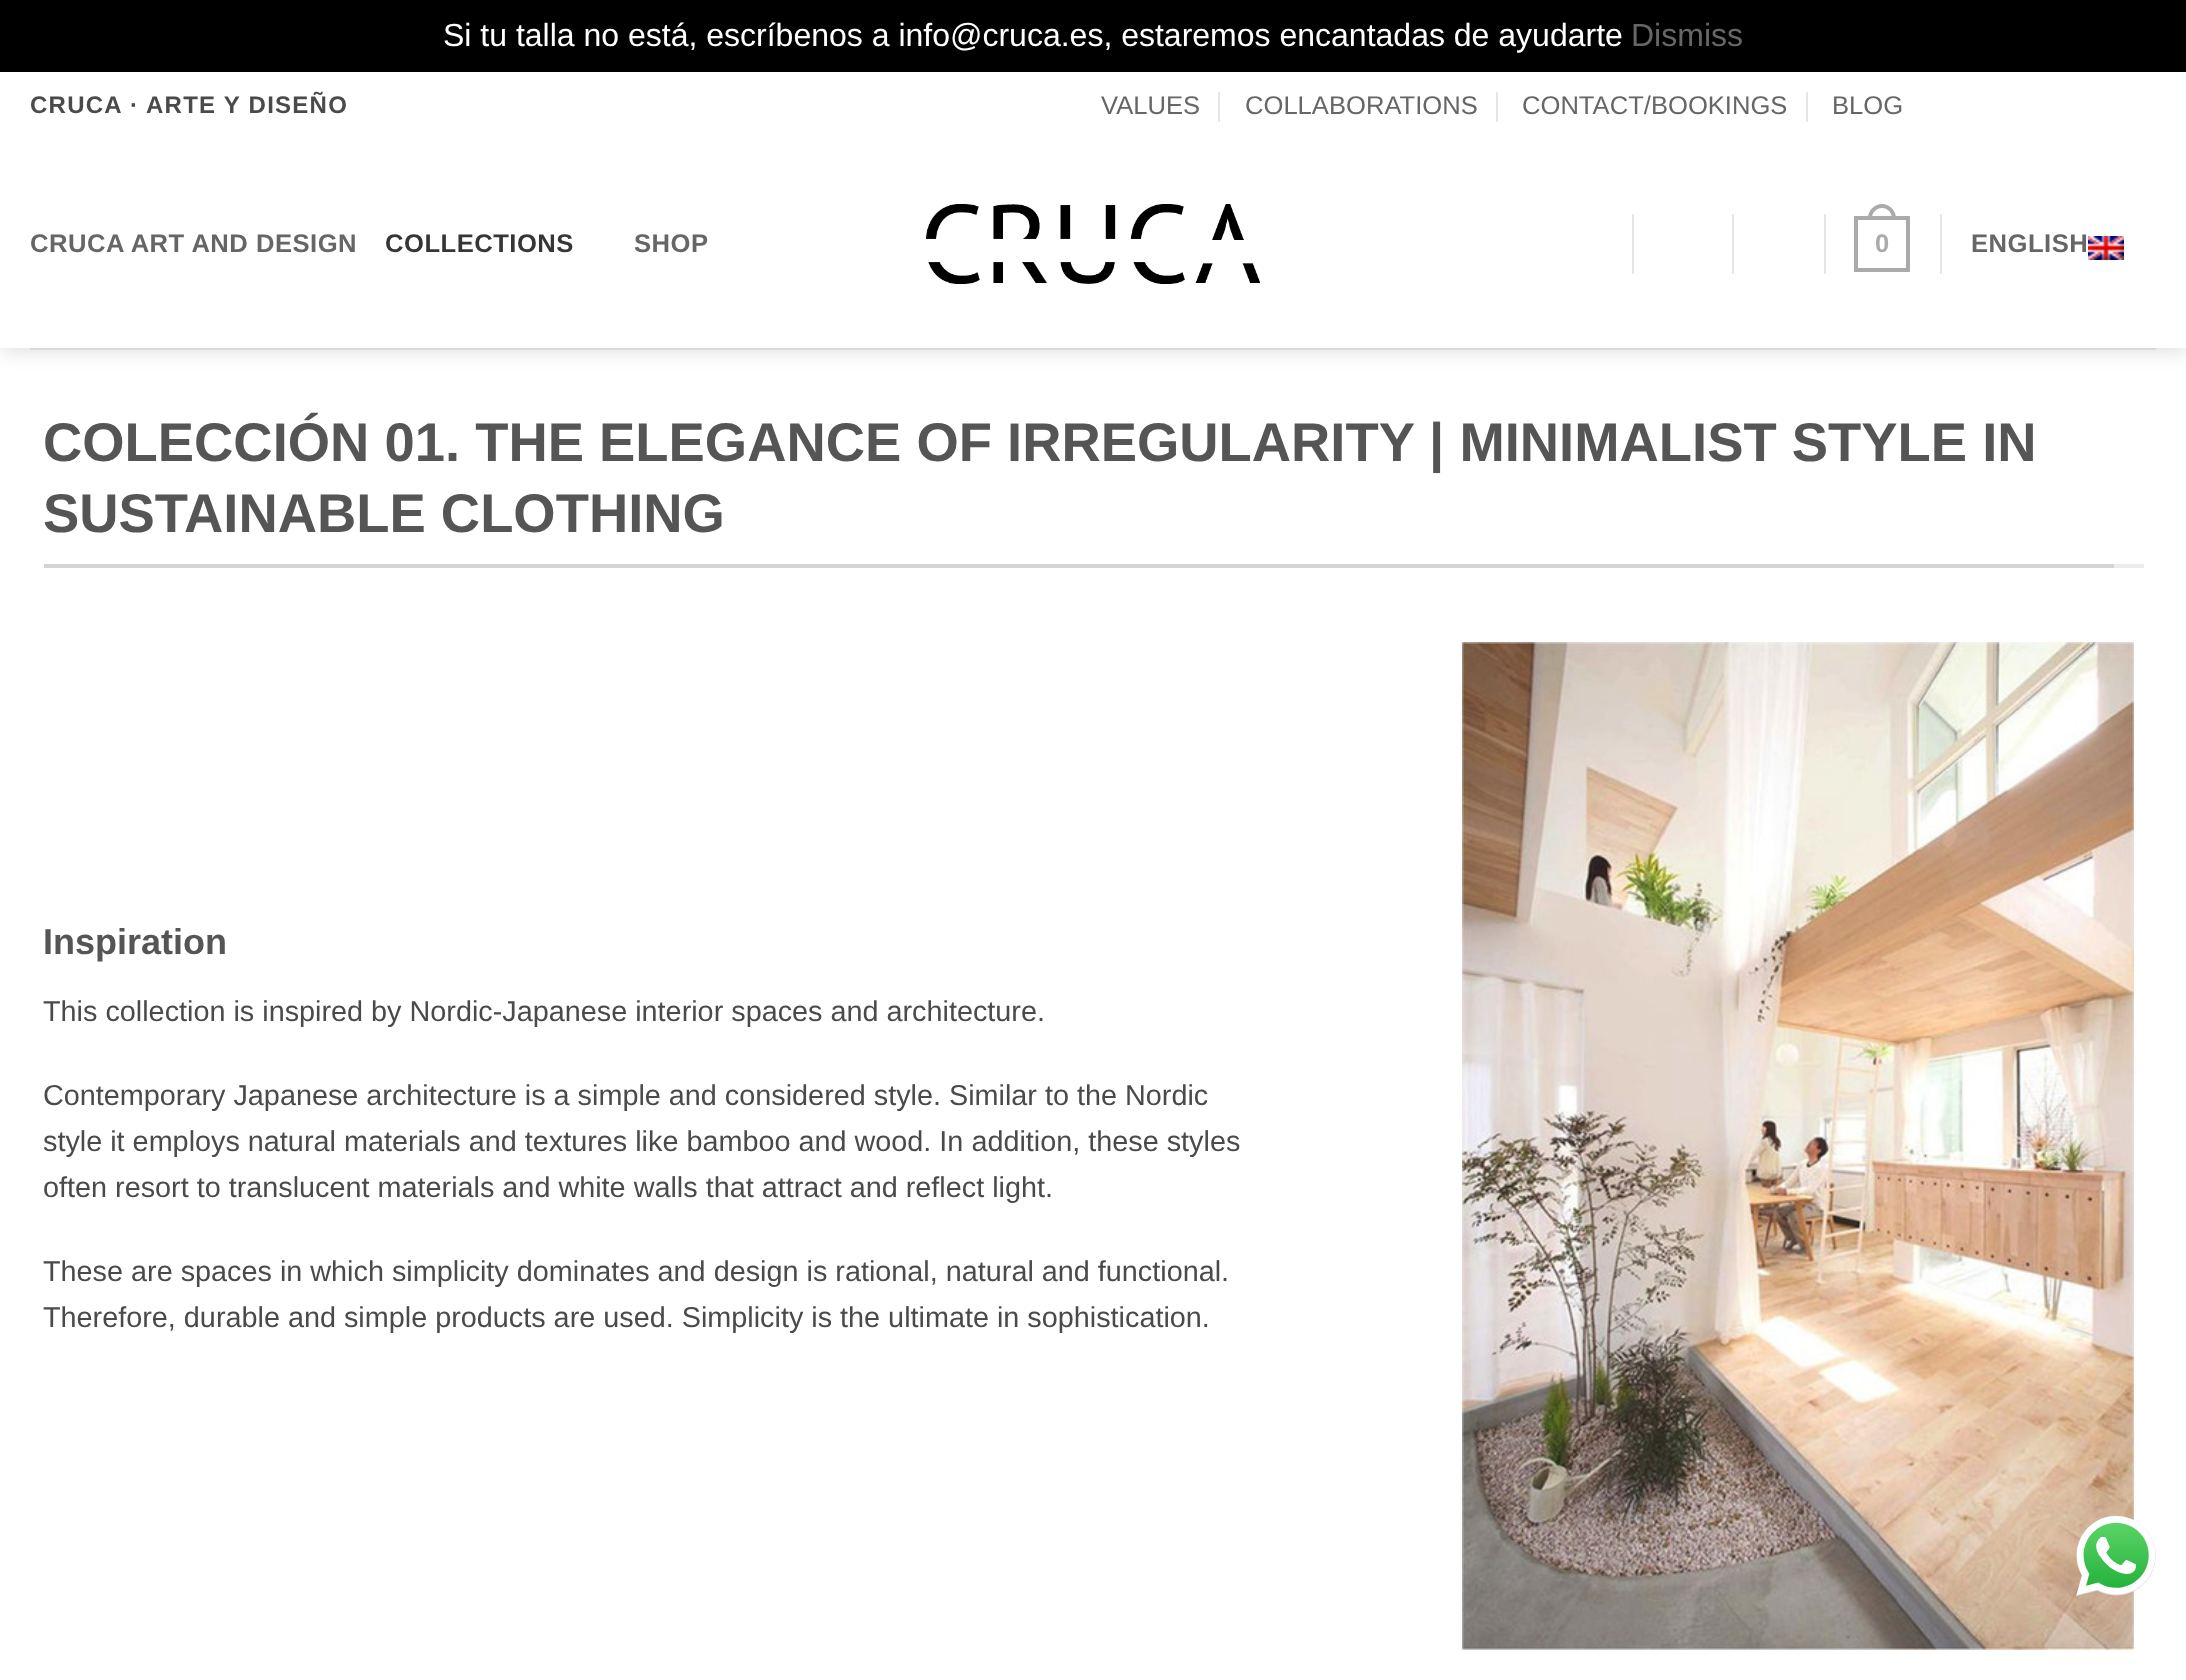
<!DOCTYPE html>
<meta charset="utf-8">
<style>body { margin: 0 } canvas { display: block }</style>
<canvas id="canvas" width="2186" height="1680"></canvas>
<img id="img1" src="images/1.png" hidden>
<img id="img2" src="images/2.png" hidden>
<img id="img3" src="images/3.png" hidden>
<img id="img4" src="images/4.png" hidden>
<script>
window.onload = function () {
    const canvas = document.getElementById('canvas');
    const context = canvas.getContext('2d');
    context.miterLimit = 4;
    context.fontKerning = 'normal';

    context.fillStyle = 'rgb(0, 0, 0)';
    context.fillRect(0, 0, 2186, 1680);
    context.fillStyle = 'rgb(255, 255, 255)';
    context.fillRect(0, 72, 2186, 1608);
    context.save();
    context.beginPath();
    context.moveTo(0, 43);
    context.lineTo(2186, 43);
    context.lineTo(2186, 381);
    context.lineTo(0, 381);
    context.closePath();
    context.moveTo(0, 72);
    context.lineTo(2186, 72);
    context.lineTo(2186, 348);
    context.lineTo(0, 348);
    context.closePath();
    context.clip('evenodd');
    context.fillStyle = 'rgba(0, 0, 0, 0.15)';
    context.filter = 'blur(10px)';
    context.beginPath();
    context.rect(2, 74, 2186, 276);
    context.fill();
    context.filter = 'none';
    context.restore();
    context.fillStyle = 'rgb(230, 230, 230)';
    context.fillRect(1218, 92, 2, 30);
    context.fillRect(1496, 92, 2, 30);
    context.fillRect(1806, 92, 2, 30);
    context.drawImage(document.getElementById('img1'), 926, 204, 334, 80);
    context.fillRect(1632, 214, 2, 60);
    context.fillRect(1732, 214, 2, 60);
    context.fillRect(1824, 214, 2, 60);
    context.strokeStyle = 'rgb(170, 170, 170)';
    context.lineWidth = 4;
    context.strokeRect(1856, 218, 52, 52);
    context.fillStyle = 'rgb(170, 170, 170)';
    context.beginPath();
    context.moveTo(1882, 204);
    context.bezierCurveTo(1889.5, 204, 1896, 210.5, 1896, 218);
    context.lineTo(1896, 220);
    context.lineTo(1868, 220);
    context.lineTo(1868, 218);
    context.bezierCurveTo(1868, 210.5, 1874.5, 204, 1882, 204);
    context.closePath();
    context.moveTo(1882, 208);
    context.bezierCurveTo(1887.5, 208, 1892, 212.5, 1892, 218);
    context.lineTo(1892, 220);
    context.lineTo(1872, 220);
    context.lineTo(1872, 218);
    context.bezierCurveTo(1872, 212.5, 1876.5, 208, 1882, 208);
    context.closePath();
    context.fill('evenodd');
    context.fillStyle = 'rgb(230, 230, 230)';
    context.fillRect(1940, 214, 2, 60);
    context.drawImage(document.getElementById('img2'), 2088, 236, 36, 24);
    context.fillStyle = 'rgb(218, 218, 218)';
    context.fillRect(30, 348, 2126, 2);
    context.fillStyle = 'rgb(236, 236, 236)';
    context.fillRect(2114, 564, 30, 4);
    context.fillStyle = 'rgb(212, 212, 212)';
    context.fillRect(44, 564, 2070, 4);
    context.drawImage(document.getElementById('img3'), 1462, 642, 672, 1008);
    context.drawImage(document.getElementById('img4'), 2076, 1516, 80, 80);
    context.font = '32px Liberation Sans';
    context.fillStyle = 'rgb(255, 255, 255)';
    context.fillText('Si tu talla no está, escríbenos a info@cruca.es, estaremos encantadas de ayudarte', 443, 46);
    context.fillStyle = 'rgb(102, 102, 102)';
    context.fillText('Dismiss', 1631, 46);
    context.letterSpacing = '1.25px';
    context.font = 'bold 24px Liberation Sans';
    context.fillStyle = 'rgb(74, 74, 74)';
    context.fillText('CRUCA ·', 30, 113);
    context.fillText('ARTE Y DISEÑO', 146, 113);
    context.letterSpacing = '0px';
    context.font = '25.6px Liberation Sans';
    context.fillStyle = 'rgb(102, 102, 102)';
    context.fillText('VALUES', 1101, 114);
    context.fillText('COLLABORATIONS', 1245, 114);
    context.fillText('CONTACT/BOOKINGS', 1522, 114);
    context.fillText('BLOG', 1832, 114);
    context.letterSpacing = '0.5px';
    context.font = 'bold 25.6px Liberation Sans';
    context.fillText('CRUCA ART AND DESIGN', 30, 252);
    context.fillStyle = 'rgb(54, 54, 54)';
    context.fillText('COLLECTIONS', 385, 252);
    context.fillStyle = 'rgb(102, 102, 102)';
    context.fillText('SHOP', 634, 252);
    context.fillStyle = 'rgb(170, 170, 170)';
    context.fillText('0', 1875, 252);
    context.fillStyle = 'rgb(102, 102, 102)';
    context.fillText('ENGLISH', 1971, 252);
    context.letterSpacing = '0px';
    context.font = 'bold 54.4px Liberation Sans';
    context.fillStyle = 'rgb(85, 85, 85)';
    context.fillText('COLECCIÓN 01. THE ELEGANCE OF IRREGULARITY | MINIMALIST STYLE IN', 43, 461);
    context.fillText('SUSTAINABLE CLOTHING', 43, 532);
    context.font = 'bold 36px Liberation Sans';
    context.fillText('Inspiration', 43, 954);
    context.font = '28.8px Liberation Sans';
    context.fillStyle = 'rgb(74, 74, 74)';
    context.fillText('This collection is inspired by Nordic-Japanese interior spaces and architecture.', 43, 1021);
    context.fillText('Contemporary Japanese architecture is a simple and considered style. Similar to the Nordic', 43, 1105);
    context.fillText('style it employs natural materials and textures like bamboo and wood. In addition, these styles', 43, 1151);
    context.fillText('often resort to translucent materials and white walls that attract and reflect light.', 43, 1197);
    context.fillText('These are spaces in which simplicity dominates and design is rational, natural and functional.', 43, 1281);
    context.fillText('Therefore, durable and simple products are used. Simplicity is the ultimate in sophistication.', 43, 1327);
};
</script>
